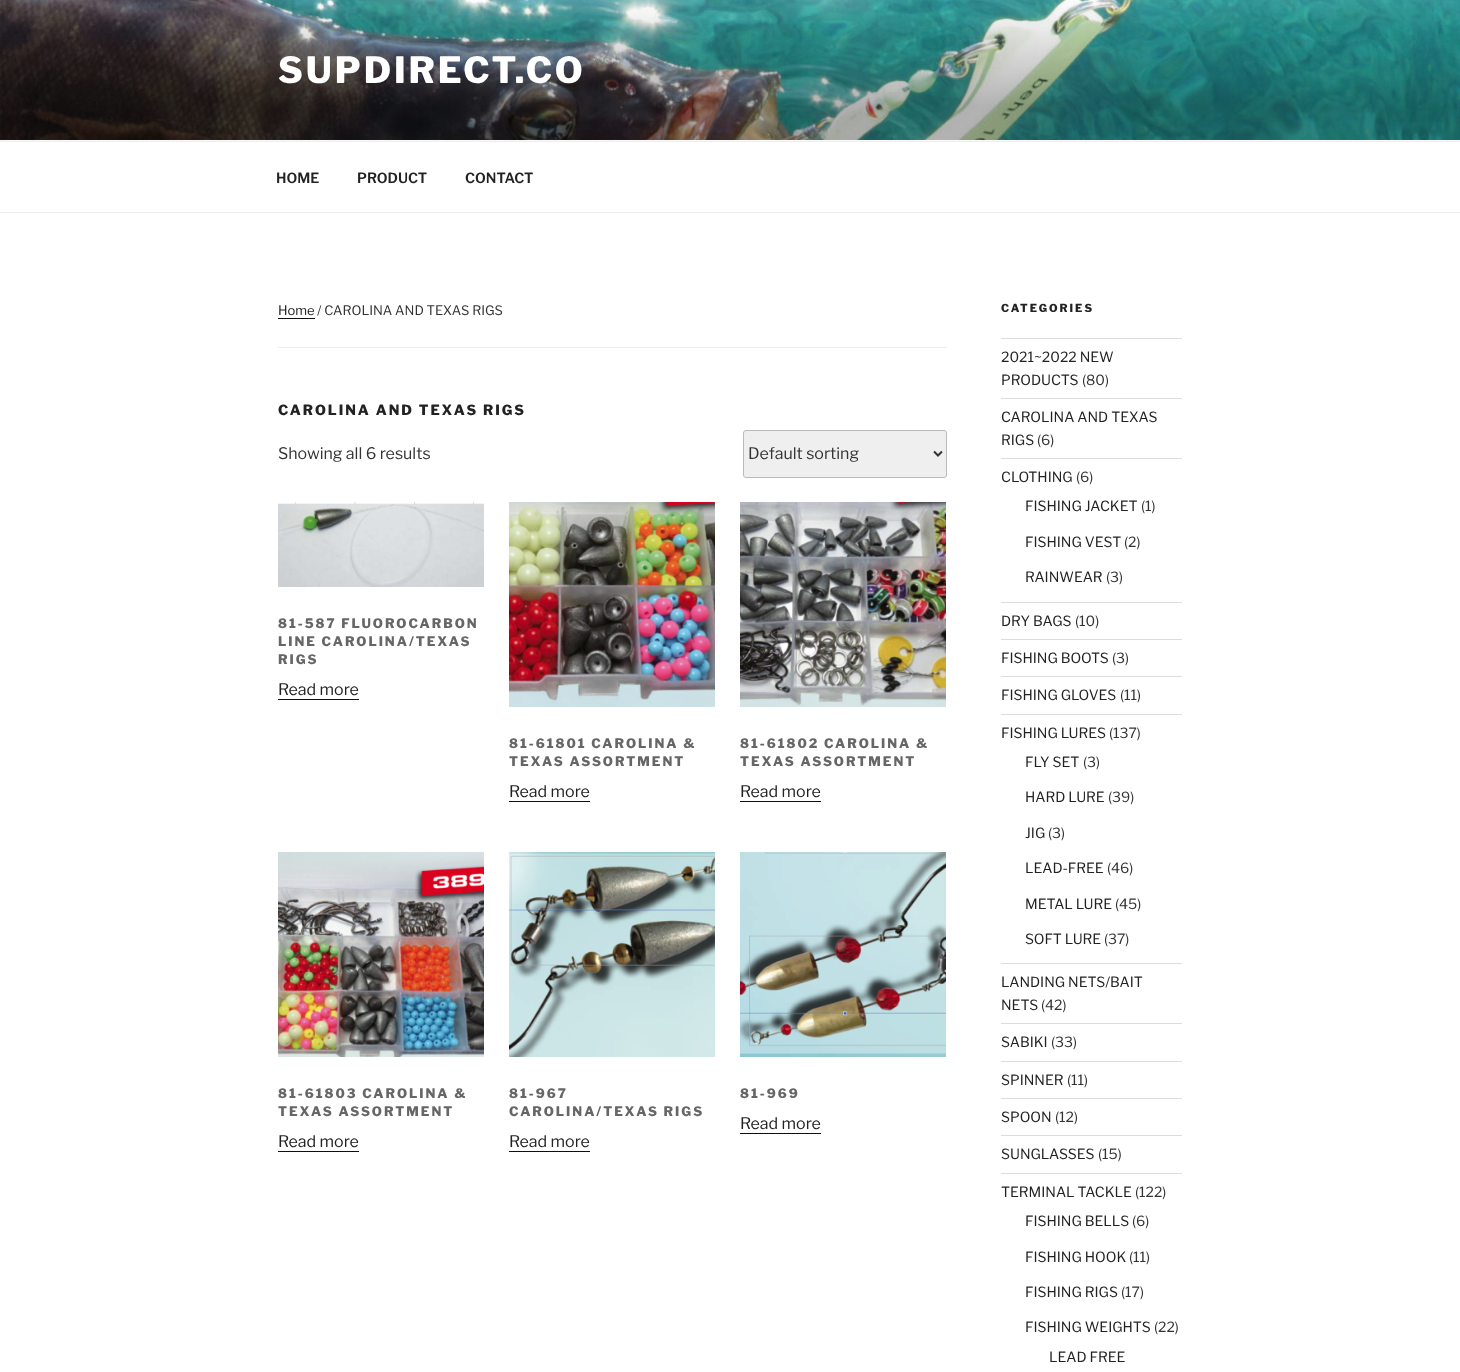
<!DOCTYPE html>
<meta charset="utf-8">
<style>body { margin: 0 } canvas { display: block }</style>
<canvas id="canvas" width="1460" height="1372"></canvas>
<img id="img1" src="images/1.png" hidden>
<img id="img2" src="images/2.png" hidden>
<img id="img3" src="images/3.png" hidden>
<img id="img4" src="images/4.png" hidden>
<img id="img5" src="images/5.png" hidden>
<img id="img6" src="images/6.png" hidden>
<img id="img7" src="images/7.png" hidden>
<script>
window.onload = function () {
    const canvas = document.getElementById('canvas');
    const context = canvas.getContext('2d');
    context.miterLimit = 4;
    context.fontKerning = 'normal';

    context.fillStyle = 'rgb(255, 255, 255)';
    context.fillRect(0, 0, 1460, 1372);
    context.fillStyle = 'rgb(250, 250, 250)';
    context.fillRect(0, 140, 1460, 1);
    context.drawImage(document.getElementById('img1'), 0, 0, 1460, 140);
    context.fillStyle = 'rgb(238, 238, 238)';
    context.fillRect(0, 141, 1460, 1);
    context.fillRect(0, 212, 1460, 1);
    context.fillRect(278, 347, 669, 1);
    context.fillStyle = 'rgb(15, 15, 15)';
    context.fillRect(278, 318, 37, 1);
    context.fillStyle = 'rgb(239, 239, 239)';
    context.beginPath();
    context.roundRect(743.5, 430.5, 203, 47, 2.5);
    context.fill();
    context.strokeStyle = 'rgb(187, 187, 187)';
    context.stroke();
    context.beginPath();
    context.moveTo(934, 451.5);
    context.lineTo(938, 455.5);
    context.lineTo(942, 451.5);
    context.strokeStyle = 'rgb(51, 51, 51)';
    context.lineWidth = 2;
    context.stroke();
    context.drawImage(document.getElementById('img2'), 278, 502, 206, 85);
    context.fillStyle = 'rgb(15, 15, 15)';
    context.fillRect(278, 699, 81, 1);
    context.drawImage(document.getElementById('img3'), 509, 502, 206, 205);
    context.fillRect(509, 801, 81, 1);
    context.drawImage(document.getElementById('img4'), 740, 502, 206, 205);
    context.fillRect(740, 801, 81, 1);
    context.drawImage(document.getElementById('img5'), 278, 852, 206, 205);
    context.fillRect(278, 1151, 81, 1);
    context.drawImage(document.getElementById('img6'), 509, 852, 206, 205);
    context.fillRect(509, 1151, 81, 1);
    context.drawImage(document.getElementById('img7'), 740, 852, 206, 205);
    context.fillRect(740, 1133, 81, 1);
    context.fillStyle = 'rgb(221, 221, 221)';
    context.fillRect(1001, 338, 181, 1);
    context.fillRect(1001, 398, 181, 1);
    context.fillRect(1001, 458, 181, 1);
    context.fillRect(1001, 602, 181, 1);
    context.fillRect(1001, 639, 181, 1);
    context.fillRect(1001, 676, 181, 1);
    context.fillRect(1001, 714, 181, 1);
    context.fillRect(1001, 963, 181, 1);
    context.fillRect(1001, 1023, 181, 1);
    context.fillRect(1001, 1061, 181, 1);
    context.fillRect(1001, 1098, 181, 1);
    context.fillRect(1001, 1135, 181, 1);
    context.fillRect(1001, 1173, 181, 1);
    context.letterSpacing = '2.9px';
    context.font = '100 36px "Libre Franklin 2"';
    context.fillStyle = 'rgb(255, 255, 255)';
    context.fillText('SUPDIRECT.CO', 278, 83);
    context.letterSpacing = '0px';
    context.font = '100 14px "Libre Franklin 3"';
    context.fillStyle = 'rgb(34, 34, 34)';
    context.fillText('HOME', 276, 183);
    context.fillText('PRODUCT', 357, 183);
    context.fillText('CONTACT', 465, 183);
    context.font = '100 13px Libre Franklin';
    context.fillText('Home', 278, 315);
    context.fillStyle = 'rgb(51, 51, 51)';
    context.fillText('/ CAROLINA AND TEXAS RIGS', 317, 315);
    context.letterSpacing = '2px';
    context.font = '100 14px "Libre Franklin 2"';
    context.fillStyle = 'rgb(34, 34, 34)';
    context.fillText('CAROLINA AND TEXAS RIGS', 278, 415);
    context.letterSpacing = '0px';
    context.font = '100 16px Libre Franklin';
    context.fillStyle = 'rgb(51, 51, 51)';
    context.fillText('Showing all 6 results', 278, 459);
    context.fillText('Default sorting', 748, 459);
    context.letterSpacing = '2px';
    context.font = '100 13px "Libre Franklin 2"';
    context.fillStyle = 'rgb(102, 102, 102)';
    context.fillText('81-587 FLUOROCARBON', 278, 628);
    context.fillText('LINE CAROLINA/TEXAS', 278, 646);
    context.fillText('RIGS', 278, 664);
    context.letterSpacing = '0px';
    context.font = '100 16px Libre Franklin';
    context.fillStyle = 'rgb(34, 34, 34)';
    context.fillText('Read more', 278, 695);
    context.letterSpacing = '2px';
    context.font = '100 13px "Libre Franklin 2"';
    context.fillStyle = 'rgb(102, 102, 102)';
    context.fillText('81-61801 CAROLINA &', 509, 748);
    context.fillText('TEXAS ASSORTMENT', 509, 766);
    context.letterSpacing = '0px';
    context.font = '100 16px Libre Franklin';
    context.fillStyle = 'rgb(34, 34, 34)';
    context.fillText('Read more', 509, 797);
    context.letterSpacing = '2px';
    context.font = '100 13px "Libre Franklin 2"';
    context.fillStyle = 'rgb(102, 102, 102)';
    context.fillText('81-61802 CAROLINA &', 740, 748);
    context.fillText('TEXAS ASSORTMENT', 740, 766);
    context.letterSpacing = '0px';
    context.font = '100 16px Libre Franklin';
    context.fillStyle = 'rgb(34, 34, 34)';
    context.fillText('Read more', 740, 797);
    context.letterSpacing = '2px';
    context.font = '100 13px "Libre Franklin 2"';
    context.fillStyle = 'rgb(102, 102, 102)';
    context.fillText('81-61803 CAROLINA &', 278, 1098);
    context.fillText('TEXAS ASSORTMENT', 278, 1116);
    context.letterSpacing = '0px';
    context.font = '100 16px Libre Franklin';
    context.fillStyle = 'rgb(34, 34, 34)';
    context.fillText('Read more', 278, 1147);
    context.letterSpacing = '2px';
    context.font = '100 13px "Libre Franklin 2"';
    context.fillStyle = 'rgb(102, 102, 102)';
    context.fillText('81-967', 509, 1098);
    context.fillText('CAROLINA/TEXAS RIGS', 509, 1116);
    context.letterSpacing = '0px';
    context.font = '100 16px Libre Franklin';
    context.fillStyle = 'rgb(34, 34, 34)';
    context.fillText('Read more', 509, 1147);
    context.letterSpacing = '2px';
    context.font = '100 13px "Libre Franklin 2"';
    context.fillStyle = 'rgb(102, 102, 102)';
    context.fillText('81-969', 740, 1098);
    context.letterSpacing = '0px';
    context.font = '100 16px Libre Franklin';
    context.fillStyle = 'rgb(34, 34, 34)';
    context.fillText('Read more', 740, 1129);
    context.letterSpacing = '2px';
    context.font = '100 11px "Libre Franklin 2"';
    context.fillText('CATEGORIES', 1001, 312);
    context.letterSpacing = '0px';
    context.font = '100 14px Libre Franklin';
    context.fillText('2021~2022 NEW', 1001, 362);
    context.fillText('PRODUCTS', 1001, 385);
    context.fillStyle = 'rgb(51, 51, 51)';
    context.fillText('(80)', 1082, 385);
    context.fillStyle = 'rgb(34, 34, 34)';
    context.fillText('CAROLINA AND TEXAS', 1001, 422);
    context.fillText('RIGS', 1001, 445);
    context.fillStyle = 'rgb(51, 51, 51)';
    context.fillText('(6)', 1037, 445);
    context.fillStyle = 'rgb(34, 34, 34)';
    context.fillText('CLOTHING', 1001, 482);
    context.fillStyle = 'rgb(51, 51, 51)';
    context.fillText('(6)', 1076, 482);
    context.fillStyle = 'rgb(34, 34, 34)';
    context.fillText('FISHING JACKET', 1025, 511);
    context.fillStyle = 'rgb(51, 51, 51)';
    context.fillText('(1)', 1141, 511);
    context.fillStyle = 'rgb(34, 34, 34)';
    context.fillText('FISHING VEST', 1025, 547);
    context.fillStyle = 'rgb(51, 51, 51)';
    context.fillText('(2)', 1124, 547);
    context.fillStyle = 'rgb(34, 34, 34)';
    context.fillText('RAINWEAR', 1025, 582);
    context.fillStyle = 'rgb(51, 51, 51)';
    context.fillText('(3)', 1106, 582);
    context.fillStyle = 'rgb(34, 34, 34)';
    context.fillText('DRY BAGS', 1001, 626);
    context.fillStyle = 'rgb(51, 51, 51)';
    context.fillText('(10)', 1075, 626);
    context.fillStyle = 'rgb(34, 34, 34)';
    context.fillText('FISHING BOOTS', 1001, 663);
    context.fillStyle = 'rgb(51, 51, 51)';
    context.fillText('(3)', 1112, 663);
    context.fillStyle = 'rgb(34, 34, 34)';
    context.fillText('FISHING GLOVES', 1001, 700);
    context.fillStyle = 'rgb(51, 51, 51)';
    context.fillText('(11)', 1120, 700);
    context.fillStyle = 'rgb(34, 34, 34)';
    context.fillText('FISHING LURES', 1001, 738);
    context.fillStyle = 'rgb(51, 51, 51)';
    context.fillText('(137)', 1109, 738);
    context.fillStyle = 'rgb(34, 34, 34)';
    context.fillText('FLY SET', 1025, 767);
    context.fillStyle = 'rgb(51, 51, 51)';
    context.fillText('(3)', 1083, 767);
    context.fillStyle = 'rgb(34, 34, 34)';
    context.fillText('HARD LURE', 1025, 802);
    context.fillStyle = 'rgb(51, 51, 51)';
    context.fillText('(39)', 1108, 802);
    context.fillStyle = 'rgb(34, 34, 34)';
    context.fillText('JIG', 1025, 838);
    context.fillStyle = 'rgb(51, 51, 51)';
    context.fillText('(3)', 1048, 838);
    context.fillStyle = 'rgb(34, 34, 34)';
    context.fillText('LEAD-FREE', 1025, 873);
    context.fillStyle = 'rgb(51, 51, 51)';
    context.fillText('(46)', 1107, 873);
    context.fillStyle = 'rgb(34, 34, 34)';
    context.fillText('METAL LURE', 1025, 909);
    context.fillStyle = 'rgb(51, 51, 51)';
    context.fillText('(45)', 1115, 909);
    context.fillStyle = 'rgb(34, 34, 34)';
    context.fillText('SOFT LURE', 1025, 944);
    context.fillStyle = 'rgb(51, 51, 51)';
    context.fillText('(37)', 1104, 944);
    context.fillStyle = 'rgb(34, 34, 34)';
    context.fillText('LANDING NETS/BAIT', 1001, 987);
    context.fillText('NETS', 1001, 1010);
    context.fillStyle = 'rgb(51, 51, 51)';
    context.fillText('(42)', 1041, 1010);
    context.fillStyle = 'rgb(34, 34, 34)';
    context.fillText('SABIKI', 1001, 1047);
    context.fillStyle = 'rgb(51, 51, 51)';
    context.fillText('(33)', 1051, 1047);
    context.fillStyle = 'rgb(34, 34, 34)';
    context.fillText('SPINNER', 1001, 1085);
    context.fillStyle = 'rgb(51, 51, 51)';
    context.fillText('(11)', 1067, 1085);
    context.fillStyle = 'rgb(34, 34, 34)';
    context.fillText('SPOON', 1001, 1122);
    context.fillStyle = 'rgb(51, 51, 51)';
    context.fillText('(12)', 1055, 1122);
    context.fillStyle = 'rgb(34, 34, 34)';
    context.fillText('SUNGLASSES', 1001, 1159);
    context.fillStyle = 'rgb(51, 51, 51)';
    context.fillText('(15)', 1098, 1159);
    context.fillStyle = 'rgb(34, 34, 34)';
    context.fillText('TERMINAL TACKLE', 1001, 1197);
    context.fillStyle = 'rgb(51, 51, 51)';
    context.fillText('(122)', 1135, 1197);
    context.fillStyle = 'rgb(34, 34, 34)';
    context.fillText('FISHING BELLS', 1025, 1226);
    context.fillStyle = 'rgb(51, 51, 51)';
    context.fillText('(6)', 1132, 1226);
    context.fillStyle = 'rgb(34, 34, 34)';
    context.fillText('FISHING HOOK', 1025, 1262);
    context.fillStyle = 'rgb(51, 51, 51)';
    context.fillText('(11)', 1129, 1262);
    context.fillStyle = 'rgb(34, 34, 34)';
    context.fillText('FISHING RIGS', 1025, 1297);
    context.fillStyle = 'rgb(51, 51, 51)';
    context.fillText('(17)', 1121, 1297);
    context.fillStyle = 'rgb(34, 34, 34)';
    context.fillText('FISHING WEIGHTS', 1025, 1332);
    context.fillStyle = 'rgb(51, 51, 51)';
    context.fillText('(22)', 1154, 1332);
    context.fillStyle = 'rgb(34, 34, 34)';
    context.fillText('LEAD FREE', 1049, 1362);
};
</script>
